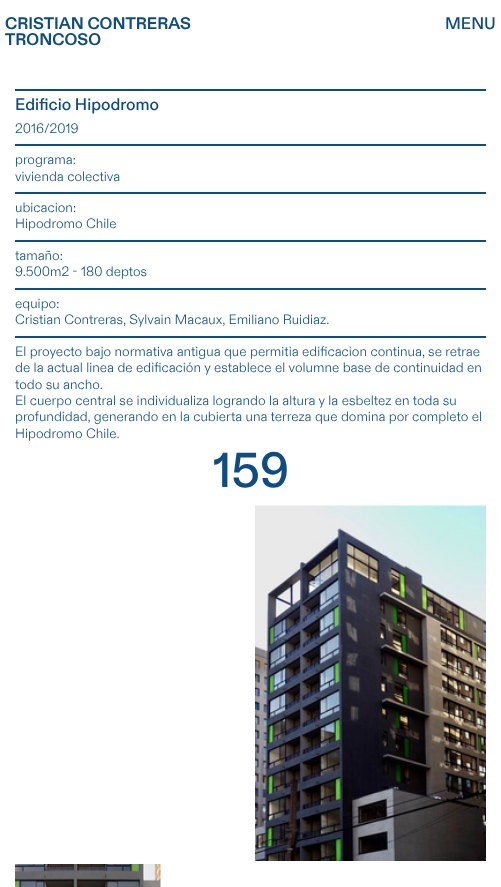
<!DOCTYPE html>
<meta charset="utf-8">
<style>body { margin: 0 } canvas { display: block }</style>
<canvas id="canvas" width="501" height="887"></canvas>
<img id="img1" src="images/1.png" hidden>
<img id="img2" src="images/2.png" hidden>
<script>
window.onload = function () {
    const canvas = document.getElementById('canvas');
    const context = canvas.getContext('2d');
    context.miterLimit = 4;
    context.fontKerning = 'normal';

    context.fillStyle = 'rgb(255, 255, 255)';
    context.fillRect(0, 0, 501, 887);
    context.fillStyle = 'rgb(15, 76, 129)';
    context.fillRect(15, 89, 471, 2);
    context.fillRect(15, 144, 471, 2);
    context.fillRect(15, 192, 471, 2);
    context.fillRect(15, 240, 471, 2);
    context.fillRect(15, 288, 471, 2);
    context.fillRect(15, 336, 471, 2);
    context.drawImage(document.getElementById('img1'), 255, 505, 231, 356);
    context.drawImage(document.getElementById('img2'), 15, 864, 146, 23);
    context.font = 'bold 16.75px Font';
    context.fillText('CRISTIAN CONTRERAS', 5, 29);
    context.fillText('TRONCOSO', 5, 45);
    context.font = '500 16.75px Font';
    context.fillText('MENU', 445, 29);
    context.fillText('Edificio Hipodromo', 15, 110);
    context.font = '300 13.65px Font';
    context.fillText('2016/2019', 15, 133);
    context.fillText('programa:', 15, 164);
    context.fillText('vivienda colectiva', 15, 181);
    context.fillText('ubicacion:', 15, 212);
    context.fillText('Hipodromo Chile', 15, 228);
    context.fillText('tamaño:', 15, 260);
    context.fillText('9.500m2 - 180 deptos', 15, 276);
    context.fillText('equipo:', 15, 308);
    context.fillText('Cristian Contreras, Sylvain Macaux, Emiliano Ruidiaz.', 15, 324);
    context.fillText('El proyecto bajo normativa antigua que permitia edificacion continua, se retrae', 15, 356);
    context.fillText('de la actual linea de edificación y establece el volumne base de continuidad en', 15, 372);
    context.fillText('todo su ancho.', 15, 389);
    context.fillText('El cuerpo central se individualiza logrando la altura y la esbeltez en toda su', 15, 405);
    context.fillText('profundidad, generando en la cubierta una terreza que domina por completo el', 15, 421);
    context.fillText('Hipodromo Chile.', 15, 438);
    context.font = '500 49px "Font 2"';
    context.fillText('159', 213, 487);
};
</script>
